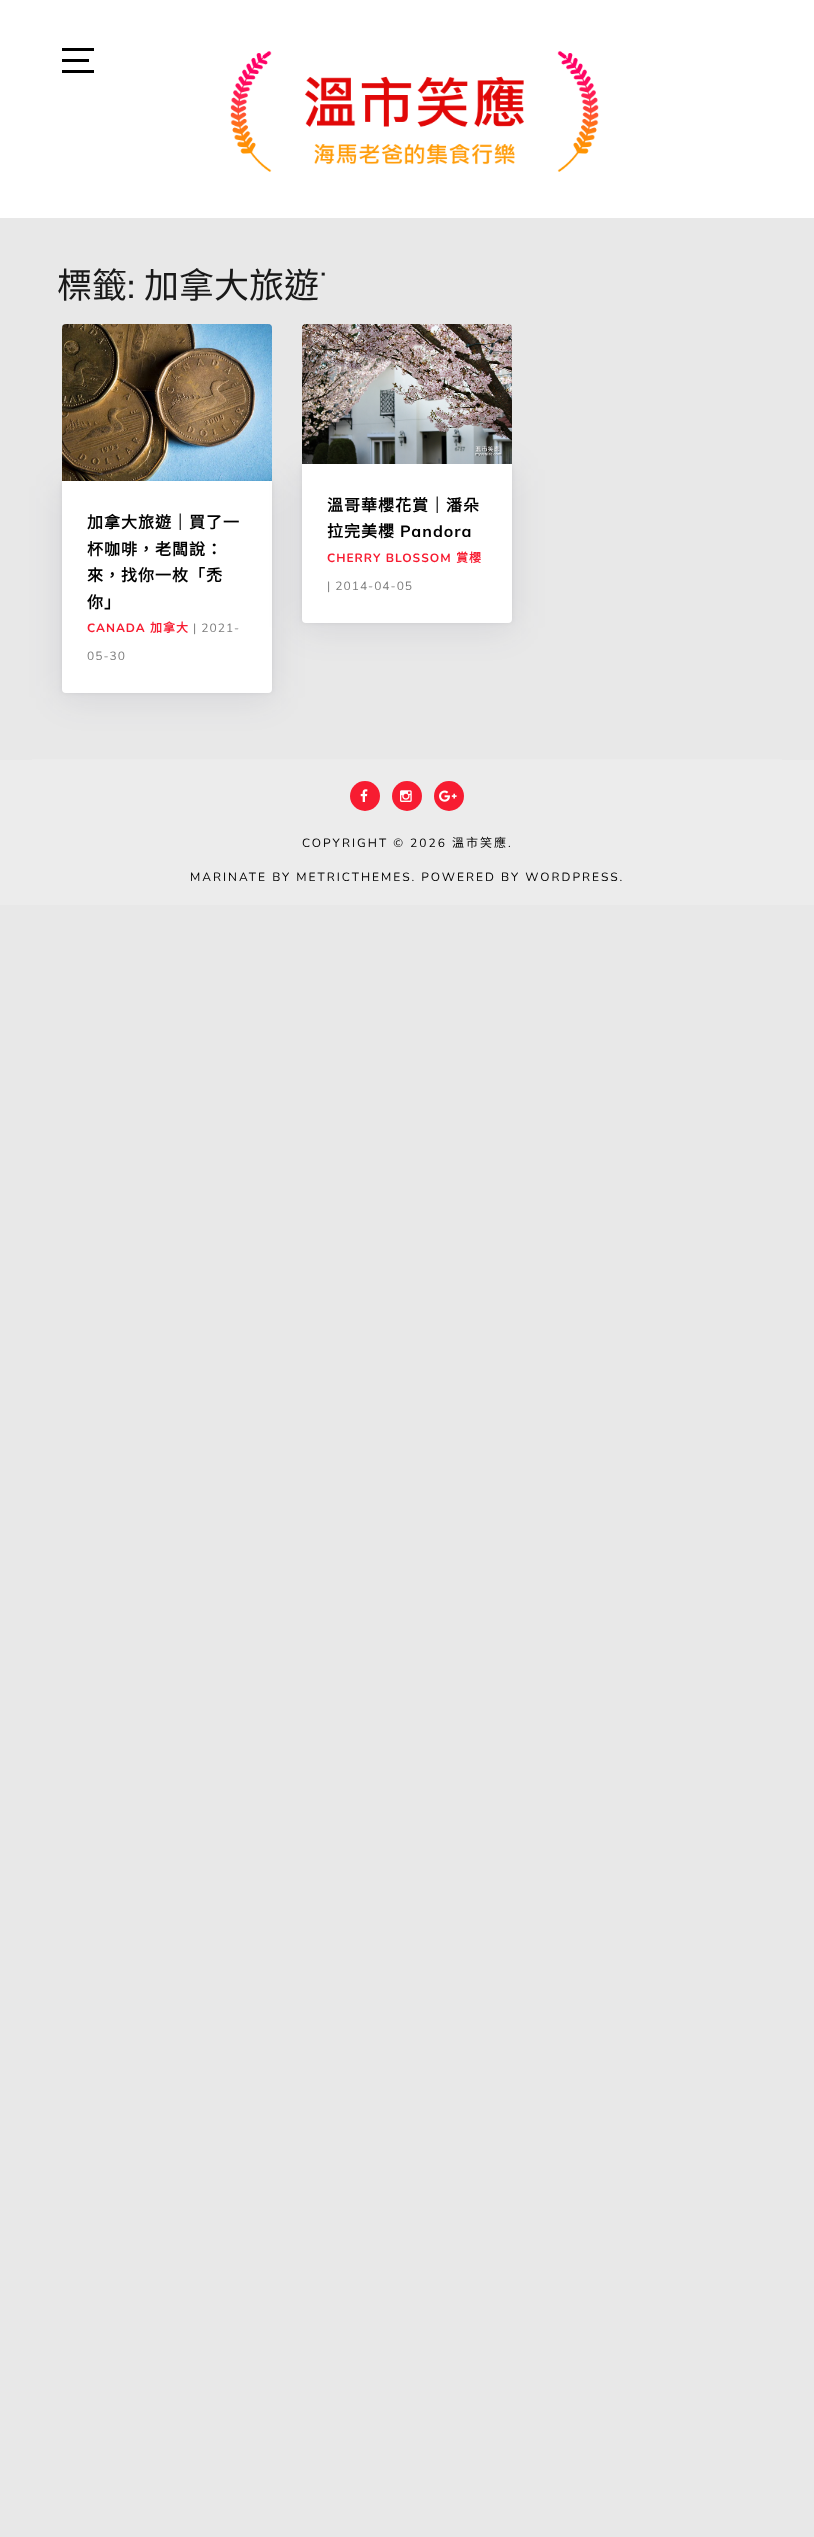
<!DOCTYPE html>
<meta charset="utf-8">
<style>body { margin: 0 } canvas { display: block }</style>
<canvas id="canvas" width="814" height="2537"></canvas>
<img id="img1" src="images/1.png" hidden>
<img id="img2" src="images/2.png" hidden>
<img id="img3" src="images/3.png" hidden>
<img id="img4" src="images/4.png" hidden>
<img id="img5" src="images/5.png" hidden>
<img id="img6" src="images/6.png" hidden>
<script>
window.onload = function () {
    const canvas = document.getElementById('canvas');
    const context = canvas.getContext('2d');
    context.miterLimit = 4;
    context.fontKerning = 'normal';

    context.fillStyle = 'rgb(232, 232, 232)';
    context.fillRect(0, 0, 814, 2537);
    context.fillStyle = 'rgb(255, 255, 255)';
    context.fillRect(0, 0, 814, 218);
    context.fillStyle = 'rgb(0, 0, 0)';
    context.fillRect(62, 59, 27, 3);
    context.fillRect(62, 48, 32, 3);
    context.fillRect(62, 70, 32, 3);
    context.drawImage(document.getElementById('img1'), 230, 51, 369, 121);
    context.fillStyle = 'rgb(235, 235, 235)';
    context.fillRect(32, 759, 750, 1);
    context.fillStyle = 'rgba(0, 0, 0, 0.07)';
    context.filter = 'blur(2.5px)';
    context.beginPath();
    context.roundRect(62, 481, 210, 212, 4);
    context.fill();
    context.filter = 'none';
    context.fillStyle = 'rgba(50, 50, 93, 0.1)';
    context.filter = 'blur(17.5px)';
    context.beginPath();
    context.roundRect(62, 486, 210, 212, 4);
    context.fill();
    context.filter = 'none';
    context.drawImage(document.getElementById('img2'), 62, 324, 210, 157);
    context.fillStyle = 'rgb(255, 255, 255)';
    context.beginPath();
    context.roundRect(62, 481, 210, 212, [0, 0, 4, 4]);
    context.fill();
    context.fillStyle = 'rgba(0, 0, 0, 0.07)';
    context.filter = 'blur(2.5px)';
    context.beginPath();
    context.roundRect(302, 464, 210, 159, 4);
    context.fill();
    context.filter = 'none';
    context.fillStyle = 'rgba(50, 50, 93, 0.1)';
    context.filter = 'blur(17.5px)';
    context.beginPath();
    context.roundRect(302, 469, 210, 159, 4);
    context.fill();
    context.filter = 'none';
    context.drawImage(document.getElementById('img3'), 302, 324, 210, 140);
    context.fillStyle = 'rgb(255, 255, 255)';
    context.beginPath();
    context.roundRect(302, 464, 210, 159, [0, 0, 4, 4]);
    context.fill();
    context.fillStyle = 'rgb(236, 236, 236)';
    context.fillRect(0, 760, 814, 145);
    context.fillStyle = 'rgb(247, 28, 49)';
    context.beginPath();
    context.arc(365, 796, 15, 0, 2 * Math.PI);
    context.fill();
    context.drawImage(document.getElementById('img4'), 360, 789, 8, 13);
    context.beginPath();
    context.arc(407, 796, 15, 0, 2 * Math.PI);
    context.fill();
    context.drawImage(document.getElementById('img5'), 400, 790, 12, 12);
    context.beginPath();
    context.arc(449, 796, 15, 0, 2 * Math.PI);
    context.fill();
    context.drawImage(document.getElementById('img6'), 439, 790, 18, 12);
    context.font = '35px Noto Sans CJK TC';
    context.fillStyle = 'rgb(25, 25, 25)';
    context.fillText('標籤', 57, 298);
    context.fillText('加拿大旅遊', 144, 298);
    context.font = '35px Liberation Sans';
    context.fillText('˙', 319, 298);
    context.font = '35px Muli';
    context.fillText(':', 127, 298);
    context.letterSpacing = '1px';
    context.font = 'bold 16px Noto Sans CJK TC';
    context.fillStyle = 'rgb(0, 0, 0)';
    context.fillText('加拿大旅遊｜買了一', 87, 528);
    context.fillText('杯咖啡，老闆說：', 87, 555);
    context.fillText('來，找你一枚「禿', 87, 581);
    context.fillText('你」', 87, 608);
    context.font = 'bold 12px Nunito';
    context.fillStyle = 'rgb(247, 28, 49)';
    context.fillText('CANADA', 87, 632);
    context.font = 'bold 12px Noto Sans CJK TC';
    context.fillText('加拿大', 150, 632);
    context.font = '12px Nunito';
    context.fillStyle = 'rgb(124, 124, 124)';
    context.fillText('| 2021-', 193, 632);
    context.fillText('05-30', 87, 660);
    context.font = 'bold 16px Noto Sans CJK TC';
    context.fillStyle = 'rgb(0, 0, 0)';
    context.fillText('溫哥華櫻花賞｜潘朵', 327, 511);
    context.fillText('拉完美櫻', 327, 537);
    context.font = 'bold 16px Muli';
    context.fillText('Pandora', 400, 537);
    context.font = 'bold 12px Nunito';
    context.fillStyle = 'rgb(247, 28, 49)';
    context.fillText('CHERRY BLOSSOM', 327, 562);
    context.font = 'bold 12px Noto Sans CJK TC';
    context.fillText('賞櫻', 456, 562);
    context.font = '12px Nunito';
    context.fillStyle = 'rgb(124, 124, 124)';
    context.fillText('| 2014-04-05', 327, 590);
    context.letterSpacing = '2px';
    context.fillStyle = 'rgb(0, 0, 0)';
    context.fillText('COPYRIGHT © 2026', 302, 847);
    context.font = '12px Noto Sans CJK TC';
    context.fillText('溫市笑應', 452, 847);
    context.font = '12px Nunito';
    context.fillText('.', 508, 847);
    context.fillText('MARINATE BY METRICTHEMES. POWERED BY WORDPRESS.', 190, 881);
};
</script>
